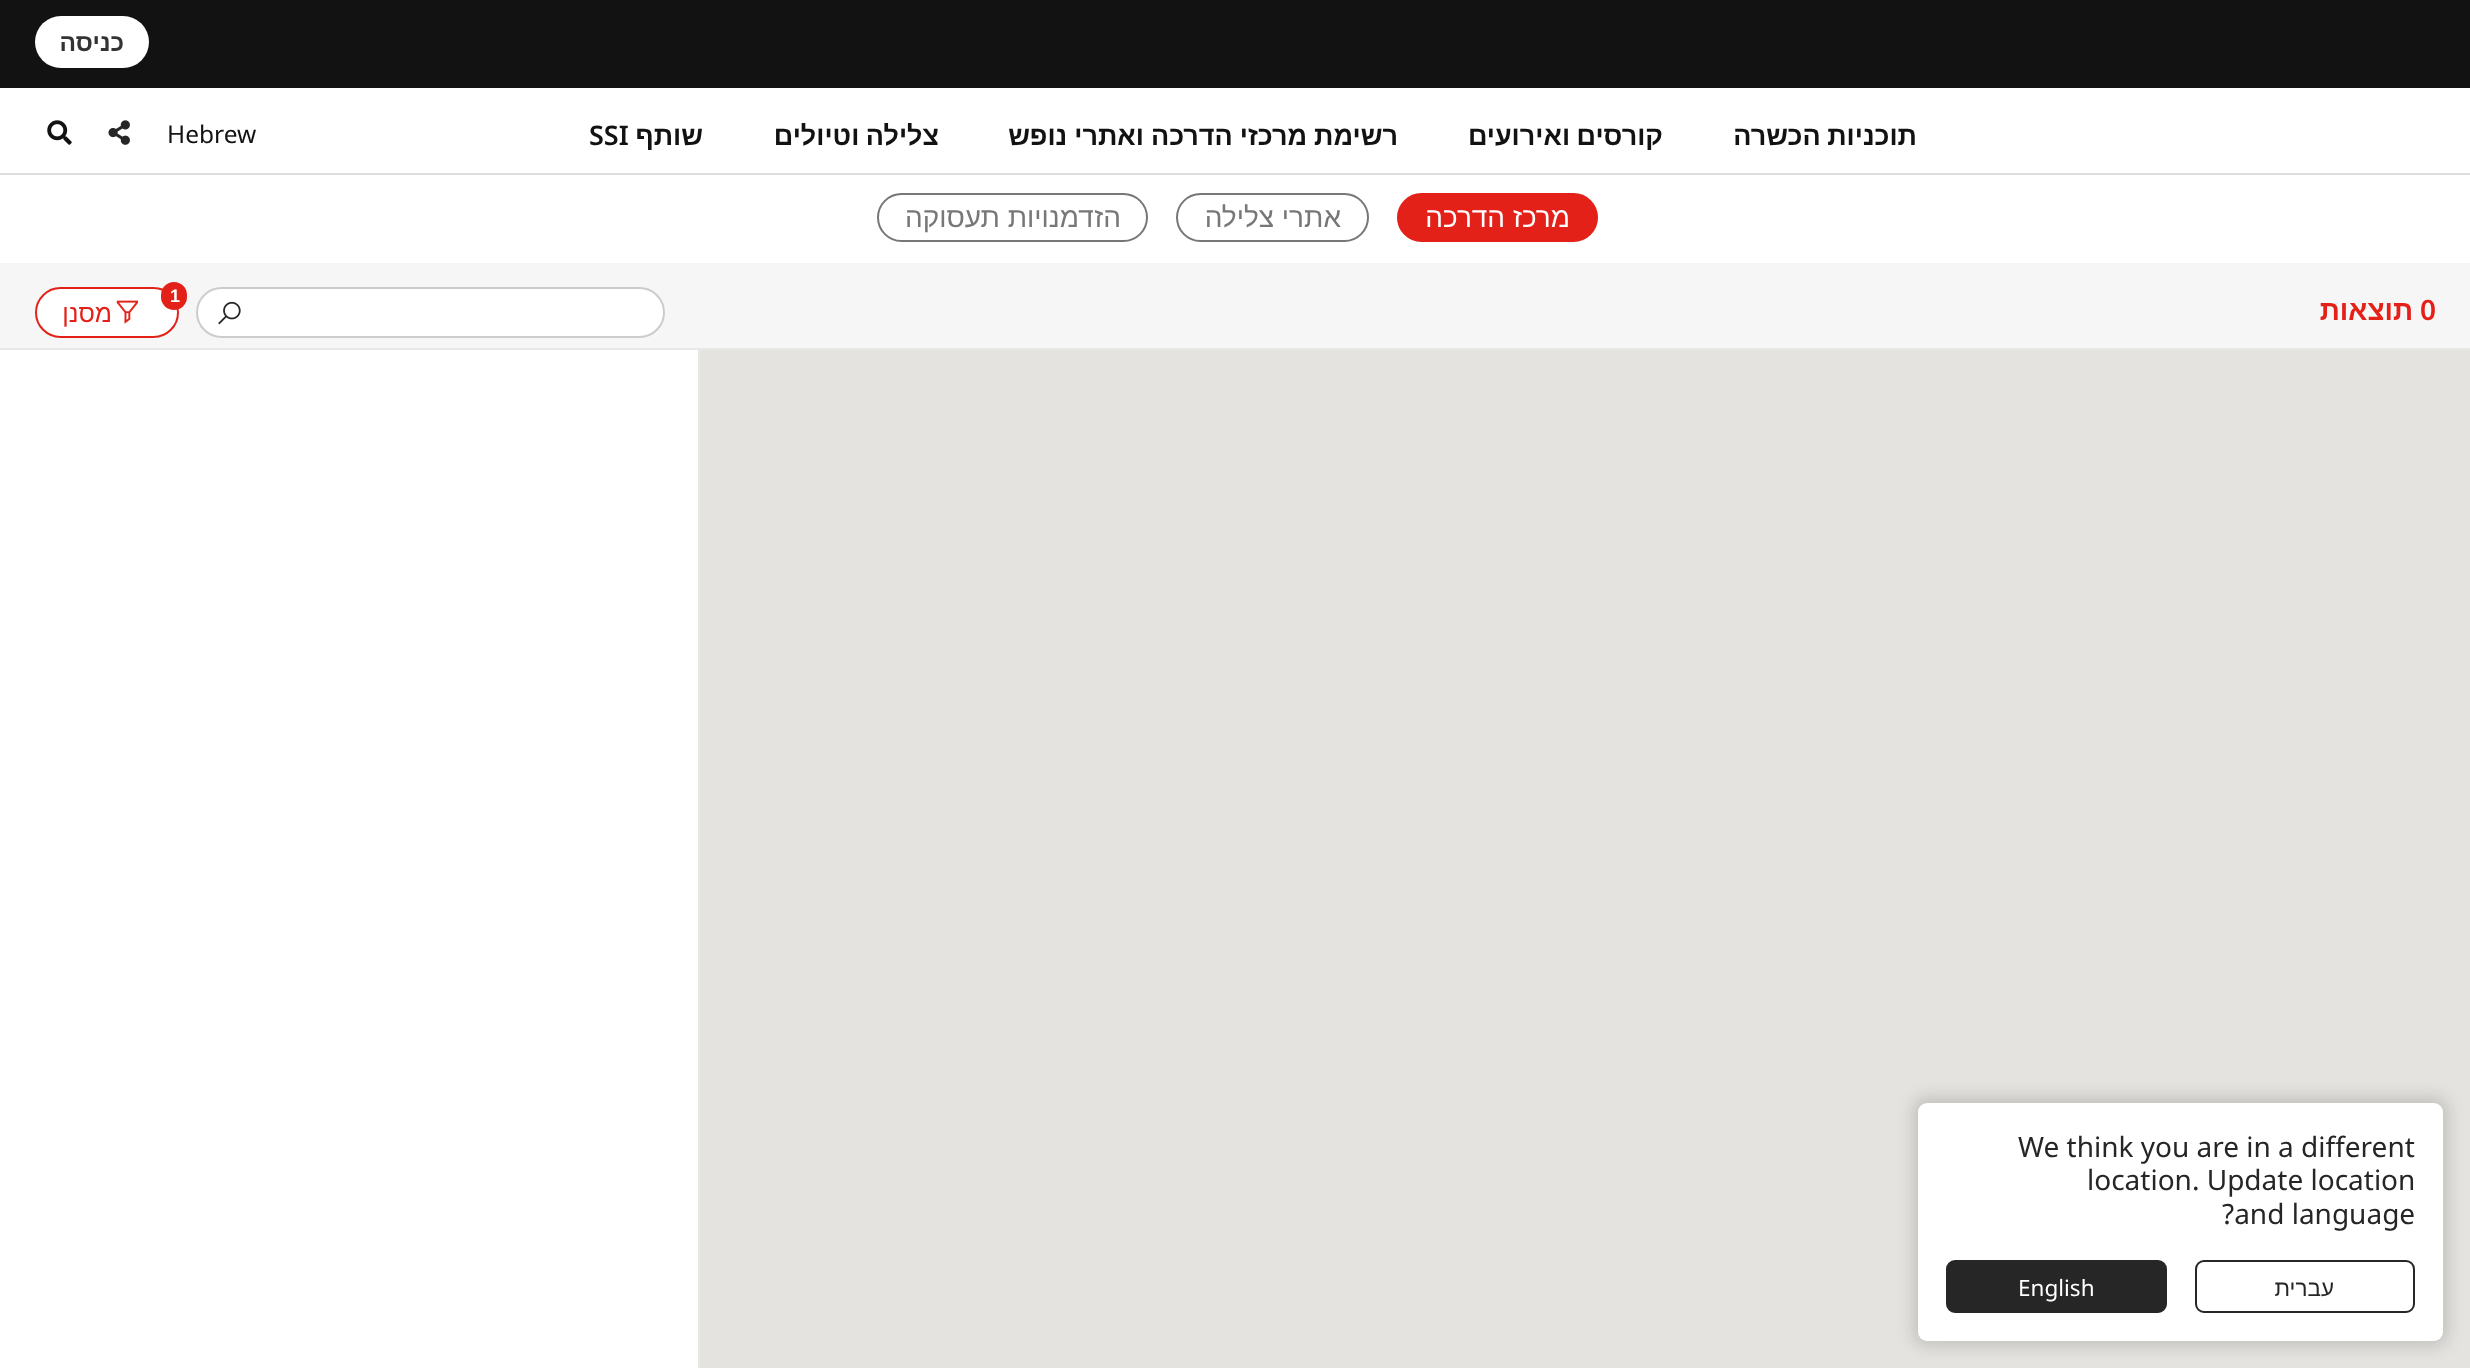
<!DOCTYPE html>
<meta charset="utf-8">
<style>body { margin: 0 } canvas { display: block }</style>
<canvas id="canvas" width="2470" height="1368"></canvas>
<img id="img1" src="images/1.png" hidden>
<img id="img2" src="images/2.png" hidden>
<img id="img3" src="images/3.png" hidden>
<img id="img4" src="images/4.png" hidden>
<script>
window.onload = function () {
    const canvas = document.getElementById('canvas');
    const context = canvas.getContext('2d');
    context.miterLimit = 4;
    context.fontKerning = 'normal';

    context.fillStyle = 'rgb(255, 255, 255)';
    context.fillRect(0, 0, 2470, 1368);
    context.fillStyle = 'rgb(18, 18, 18)';
    context.fillRect(0, 0, 2470, 88);
    context.fillStyle = 'rgb(255, 255, 255)';
    context.beginPath();
    context.roundRect(35, 16, 114, 52, 26);
    context.fill();
    context.fillStyle = 'rgb(221, 221, 221)';
    context.fillRect(0, 173, 2470, 2);
    context.drawImage(document.getElementById('img1'), 108, 120, 22, 25);
    context.drawImage(document.getElementById('img2'), 47, 120, 25, 25);
    context.fillStyle = 'rgb(227, 33, 25)';
    context.beginPath();
    context.roundRect(1398, 194, 199, 47, 23.5);
    context.fill();
    context.strokeStyle = 'rgb(227, 33, 25)';
    context.lineWidth = 2;
    context.stroke();
    context.beginPath();
    context.roundRect(1177, 194, 191, 47, 23.5);
    context.strokeStyle = 'rgb(119, 119, 119)';
    context.stroke();
    context.beginPath();
    context.roundRect(878, 194, 269, 47, 23.5);
    context.stroke();
    context.fillStyle = 'rgb(231, 231, 231)';
    context.fillRect(698, 350, 2, 1018);
    context.fillStyle = 'rgb(246, 246, 246)';
    context.fillRect(0, 263, 2470, 85);
    context.fillStyle = 'rgb(231, 231, 231)';
    context.fillRect(0, 348, 2470, 2);
    context.fillStyle = 'rgb(255, 255, 255)';
    context.beginPath();
    context.roundRect(197, 288, 467, 49, 24.5);
    context.fill();
    context.strokeStyle = 'rgb(204, 204, 204)';
    context.stroke();
    context.drawImage(document.getElementById('img3'), 218, 301, 23, 24);
    context.beginPath();
    context.roundRect(36, 288, 142, 49, 24.5);
    context.fill();
    context.strokeStyle = 'rgb(227, 33, 25)';
    context.stroke();
    context.fillStyle = 'rgb(227, 33, 25)';
    context.beginPath();
    context.roundRect(161, 282, 26, 28, 13);
    context.fill();
    context.drawImage(document.getElementById('img4'), 116, 300, 22, 24);
    context.fillStyle = 'rgb(229, 227, 223)';
    context.fillRect(700, 350, 1770, 1018);
    context.fillStyle = 'rgba(0, 0, 0, 0.15)';
    context.filter = 'blur(8px)';
    context.beginPath();
    context.roundRect(1913, 1097, 535, 249, 14);
    context.fill();
    context.filter = 'none';
    context.fillStyle = 'rgb(255, 255, 255)';
    context.beginPath();
    context.roundRect(1918, 1103, 525, 238, 9);
    context.fill();
    context.beginPath();
    context.roundRect(2196, 1261, 218, 51, 8);
    context.strokeStyle = 'rgb(38, 38, 38)';
    context.stroke();
    context.fillStyle = 'rgb(38, 38, 38)';
    context.beginPath();
    context.roundRect(1947, 1261, 219, 51, 8);
    context.fill();
    context.stroke();
    context.direction = 'rtl';
    context.font = 'bold 24.5px Liberation Sans';
    context.fillStyle = 'rgb(51, 51, 51)';
    context.fillText('כניסה', 124, 51);
    context.wordSpacing = '-1px';
    context.font = 'bold 27px Liberation Sans';
    context.fillStyle = 'rgb(18, 18, 18)';
    context.fillText('תוכניות הכשרה', 1917, 145);
    context.fillText('קורסים ואירועים', 1663, 145);
    context.wordSpacing = '-0.5px';
    context.fillText('רשימת מרכזי הדרכה ואתרי נופש', 1398, 145);
    context.wordSpacing = '-1px';
    context.fillText('צלילה וטיולים', 939, 145);
    context.wordSpacing = '0px';
    context.fillText('שותף', 703, 145);
    context.direction = 'ltr';
    context.font = '600 27px Noto Sans';
    context.fillText('SSI', 589, 145);
    context.font = '24.5px Noto Sans';
    context.fillText('Hebrew', 167, 143);
    context.direction = 'rtl';
    context.font = '28px Liberation Sans';
    context.fillStyle = 'rgb(255, 255, 255)';
    context.fillText('מרכז הדרכה', 1570, 227);
    context.fillStyle = 'rgb(119, 119, 119)';
    context.fillText('אתרי צלילה', 1341, 227);
    context.fillText('הזדמנויות תעסוקה', 1121, 227);
    context.direction = 'ltr';
    context.font = '600 28px Noto Sans';
    context.fillStyle = 'rgb(227, 33, 25)';
    context.fillText('0', 2420, 320);
    context.direction = 'rtl';
    context.font = 'bold 28px Liberation Sans';
    context.fillText('תוצאות', 2413, 320);
    context.direction = 'ltr';
    context.font = 'bold 18px Liberation Sans';
    context.fillStyle = 'rgb(255, 255, 255)';
    context.fillText('1', 170, 302);
    context.direction = 'rtl';
    context.font = '25px Liberation Sans';
    context.fillStyle = 'rgb(227, 33, 25)';
    context.fillText('מסנן', 112, 322);
    context.direction = 'ltr';
    context.font = '28px Noto Sans';
    context.fillStyle = 'rgb(38, 38, 38)';
    context.fillText('We think you are in a different', 2018, 1157);
    context.fillText('location. Update location', 2087, 1190);
    context.fillText('?and language', 2222, 1224);
    context.direction = 'rtl';
    context.font = '22.5px Liberation Sans';
    context.fillText('עברית', 2334, 1296);
    context.direction = 'ltr';
    context.font = '22.5px Noto Sans';
    context.fillStyle = 'rgb(255, 255, 255)';
    context.fillText('English', 2018, 1296);
};
</script>
